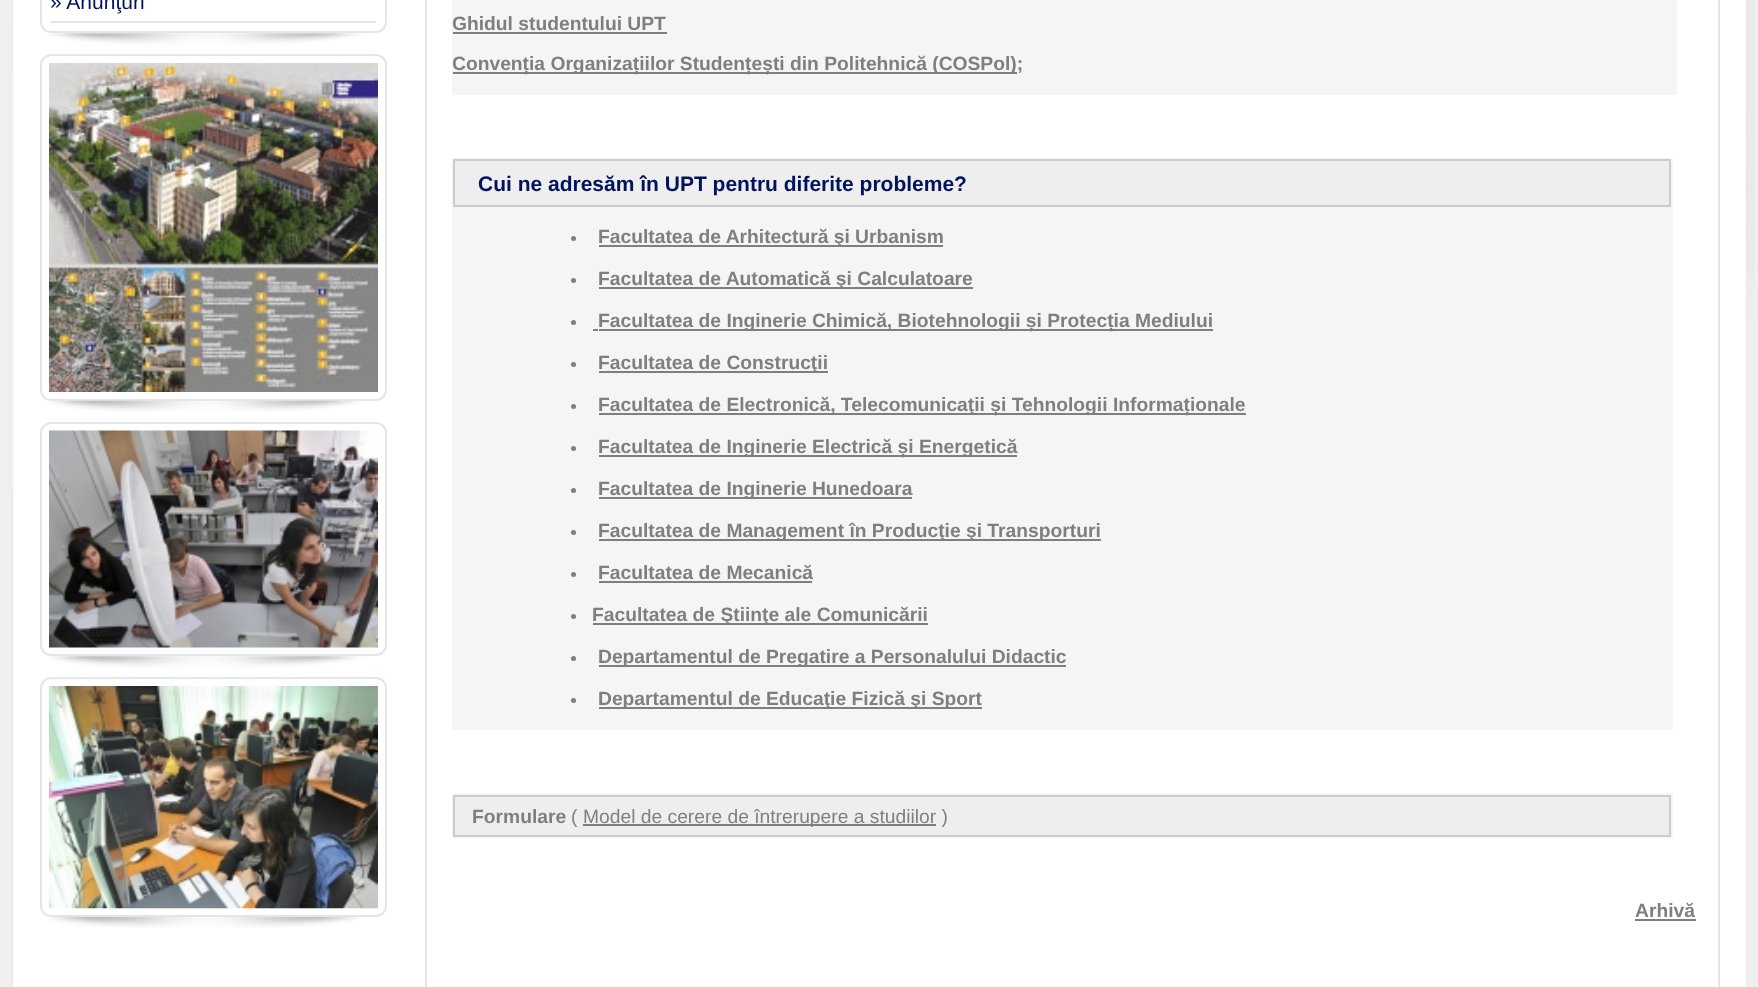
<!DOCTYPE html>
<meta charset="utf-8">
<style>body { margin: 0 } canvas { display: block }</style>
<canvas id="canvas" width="1758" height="987"></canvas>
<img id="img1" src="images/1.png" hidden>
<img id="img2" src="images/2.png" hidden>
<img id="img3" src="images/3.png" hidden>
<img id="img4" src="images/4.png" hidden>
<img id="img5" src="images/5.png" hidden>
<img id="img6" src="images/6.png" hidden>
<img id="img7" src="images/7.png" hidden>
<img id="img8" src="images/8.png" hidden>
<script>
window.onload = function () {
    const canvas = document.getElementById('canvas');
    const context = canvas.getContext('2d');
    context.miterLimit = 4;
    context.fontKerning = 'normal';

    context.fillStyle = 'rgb(239, 239, 239)';
    context.fillRect(0, 0, 1758, 987);
    context.drawImage(document.getElementById('img1'), 11, 489, 1735, 498);
    context.drawImage(document.getElementById('img2'), 11, 0, 1744, 489);
    context.beginPath();
    context.roundRect(41, -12, 345, 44, 10);
    context.strokeStyle = 'rgb(228, 229, 231)';
    context.lineWidth = 2;
    context.stroke();
    context.fillStyle = 'rgb(228, 229, 231)';
    context.fillRect(51, 21, 325, 2);
    context.beginPath();
    context.roundRect(41, 55, 345, 345, 10);
    context.stroke();
    context.drawImage(document.getElementById('img3'), 48, 33, 321, 22);
    context.drawImage(document.getElementById('img4'), 49, 63, 329, 329);
    context.drawImage(document.getElementById('img5'), 48, 400, 321, 12);
    context.beginPath();
    context.roundRect(41, 423, 345, 232, 10);
    context.stroke();
    context.drawImage(document.getElementById('img6'), 49, 430, 329, 218);
    context.beginPath();
    context.roundRect(41, 678, 345, 238, 10);
    context.stroke();
    context.drawImage(document.getElementById('img3'), 48, 656, 321, 22);
    context.drawImage(document.getElementById('img7'), 49, 686, 329, 223);
    context.drawImage(document.getElementById('img8'), 49, 917, 312, 11);
    context.strokeRect(426, -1, 1293, 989);
    context.fillStyle = 'rgb(245, 245, 245)';
    context.fillRect(452, 0, 1225, 95);
    context.fillStyle = 'rgb(127, 127, 127)';
    context.fillRect(453, 32, 214, 2);
    context.fillRect(453, 72, 564, 2);
    context.fillStyle = 'rgb(245, 245, 245)';
    context.fillRect(452, 158, 1221, 572);
    context.fillStyle = 'rgb(238, 238, 238)';
    context.beginPath();
    context.rect(454, 160, 1216, 46);
    context.fill();
    context.strokeStyle = 'rgb(204, 204, 204)';
    context.stroke();
    context.fillStyle = 'rgb(127, 127, 127)';
    context.beginPath();
    context.arc(573.5, 238.5, 2.5, 0, 2 * Math.PI);
    context.fill();
    context.fillRect(599, 245, 344, 2);
    context.beginPath();
    context.arc(573.5, 280.5, 2.5, 0, 2 * Math.PI);
    context.fill();
    context.fillRect(599, 287, 374, 2);
    context.beginPath();
    context.arc(573.5, 322.5, 2.5, 0, 2 * Math.PI);
    context.fill();
    context.fillRect(593, 329, 5, 2);
    context.fillRect(599, 329, 614, 2);
    context.beginPath();
    context.arc(573.5, 364.5, 2.5, 0, 2 * Math.PI);
    context.fill();
    context.fillRect(599, 371, 229, 2);
    context.beginPath();
    context.arc(573.5, 406.5, 2.5, 0, 2 * Math.PI);
    context.fill();
    context.fillRect(599, 413, 647, 2);
    context.beginPath();
    context.arc(573.5, 448.5, 2.5, 0, 2 * Math.PI);
    context.fill();
    context.fillRect(599, 455, 418, 2);
    context.beginPath();
    context.arc(573.5, 490.5, 2.5, 0, 2 * Math.PI);
    context.fill();
    context.fillRect(599, 497, 313, 2);
    context.beginPath();
    context.arc(573.5, 532.5, 2.5, 0, 2 * Math.PI);
    context.fill();
    context.fillRect(599, 539, 502, 2);
    context.beginPath();
    context.arc(573.5, 574.5, 2.5, 0, 2 * Math.PI);
    context.fill();
    context.fillRect(599, 581, 213, 2);
    context.beginPath();
    context.arc(573.5, 616.5, 2.5, 0, 2 * Math.PI);
    context.fill();
    context.fillRect(593, 623, 335, 2);
    context.beginPath();
    context.arc(573.5, 658.5, 2.5, 0, 2 * Math.PI);
    context.fill();
    context.fillRect(599, 665, 467, 2);
    context.beginPath();
    context.arc(573.5, 700.5, 2.5, 0, 2 * Math.PI);
    context.fill();
    context.fillRect(599, 707, 383, 2);
    context.fillStyle = 'rgb(245, 245, 245)';
    context.fillRect(452, 793, 1221, 45);
    context.fillStyle = 'rgb(238, 238, 238)';
    context.beginPath();
    context.rect(454, 796, 1216, 40);
    context.fill();
    context.stroke();
    context.fillStyle = 'rgb(127, 127, 127)';
    context.fillRect(583, 824, 353, 2);
    context.fillRect(1635, 919, 61, 2);
    context.font = '21px Liberation Sans';
    context.fillStyle = 'rgb(1, 19, 93)';
    context.fillText('» Anunţuri', 50, 9);
    context.font = 'bold 19.25px Liberation Sans';
    context.fillStyle = 'rgb(127, 127, 127)';
    context.fillText('Ghidul studentului UPT', 452, 30);
    context.fillText('Convenția Organizațiilor Studențești din Politehnică (COSPol);', 452, 70);
    context.font = 'bold 21px Liberation Sans';
    context.fillStyle = 'rgb(1, 19, 93)';
    context.fillText('Cui ne adresăm în UPT pentru diferite probleme?', 478, 191);
    context.font = 'bold 19.25px Liberation Sans';
    context.fillStyle = 'rgb(127, 127, 127)';
    context.fillText('Facultatea de Arhitectură şi Urbanism', 598, 243);
    context.fillText('Facultatea de Automatică şi Calculatoare', 598, 285);
    context.fillText('Facultatea de Inginerie Chimică, Biotehnologii și Protecția Mediului', 598, 327);
    context.fillText('Facultatea de Construcţii', 598, 369);
    context.fillText('Facultatea de Electronică, Telecomunicaţii și Tehnologii Informaționale', 598, 411);
    context.fillText('Facultatea de Inginerie Electrică și Energetică', 598, 453);
    context.fillText('Facultatea de Inginerie Hunedoara', 598, 495);
    context.fillText('Facultatea de Management în Producţie şi Transporturi', 598, 537);
    context.fillText('Facultatea de Mecanică', 598, 579);
    context.fillText('Facultatea de Ştiinţe ale Comunicării', 592, 621);
    context.fillText('Departamentul de Pregatire a Personalului Didactic', 598, 663);
    context.fillText('Departamentul de Educaţie Fizică şi Sport', 598, 705);
    context.fillText('Formulare', 472, 823);
    context.font = '19.25px Liberation Sans';
    context.fillText('(', 571, 823);
    context.fillText('Model de cerere de întrerupere a studiilor )', 583, 823);
    context.font = 'bold 19.25px Liberation Sans';
    context.fillText('Arhivă', 1635, 917);
};
</script>
